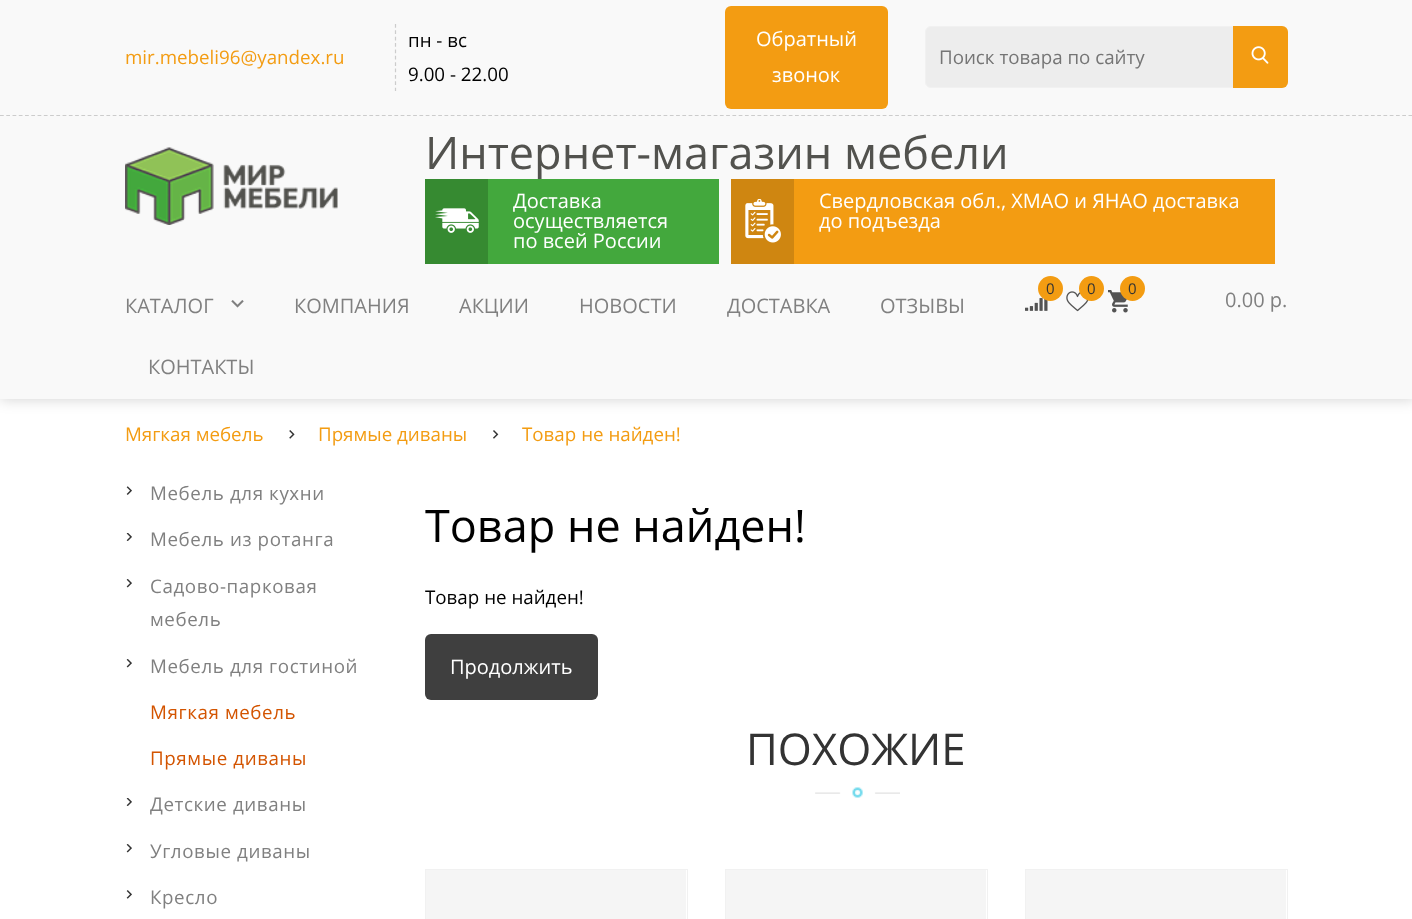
<!DOCTYPE html>
<meta charset="utf-8">
<style>body { margin: 0 } canvas { display: block }</style>
<canvas id="canvas" width="1412" height="919"></canvas>
<img id="img1" src="images/1.png" hidden>
<img id="img2" src="images/2.png" hidden>
<img id="img3" src="images/5.png" hidden>
<img id="img4" src="images/6.png" hidden>
<img id="img5" src="images/7.png" hidden>
<img id="img6" src="images/8.png" hidden>
<img id="img7" src="images/9.png" hidden>
<img id="img8" src="images/10.png" hidden>
<img id="img9" src="images/11.png" hidden>
<img id="img10" src="images/12.png" hidden>
<img id="img11" src="images/13.png" hidden>
<img id="img12" src="images/14.png" hidden>
<img id="img13" src="images/15.png" hidden>
<img id="img14" src="images/3.png" hidden>
<img id="img15" src="images/4.png" hidden>
<script>
window.onload = function () {
    const canvas = document.getElementById('canvas');
    const context = canvas.getContext('2d');
    context.miterLimit = 4;
    context.fontKerning = 'normal';

    context.fillStyle = 'rgb(255, 255, 255)';
    context.fillRect(0, 0, 1412, 919);
    context.fillStyle = 'rgba(0, 0, 0, 0.16)';
    context.filter = 'blur(7px)';
    context.beginPath();
    context.rect(0, -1, 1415, 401);
    context.fill();
    context.filter = 'none';
    context.fillStyle = 'rgb(249, 249, 249)';
    context.fillRect(0, 0, 1412, 399);
    context.beginPath();
    context.moveTo(0, 115.5);
    context.lineTo(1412.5, 115.5);
    context.strokeStyle = 'rgb(204, 204, 204)';
    context.lineWidth = 1.2;
    context.setLineDash([3.75, 2.51]);
    context.stroke();
    context.beginPath();
    context.moveTo(395.5, 24);
    context.lineTo(395.5, 91);
    context.setLineDash([3.75, 2.62]);
    context.stroke();
    context.fillStyle = 'rgb(243, 156, 18)';
    context.beginPath();
    context.roundRect(725, 6, 163, 103, 6);
    context.fill();
    context.fillStyle = 'rgb(237, 237, 237)';
    context.beginPath();
    context.roundRect(925.5, 26.5, 362, 61, 5.5);
    context.fill();
    context.strokeStyle = 'rgb(241, 241, 241)';
    context.lineWidth = 1;
    context.setLineDash([]);
    context.stroke();
    context.fillStyle = 'rgb(243, 156, 18)';
    context.beginPath();
    context.roundRect(1233, 26, 55, 62, [0, 6, 6, 0]);
    context.fill();
    context.drawImage(document.getElementById('img1'), 1251, 46, 18, 18);
    context.drawImage(document.getElementById('img2'), 125, 147, 213, 78);
    context.drawImage(document.getElementById('img3'), 231, 300, 13, 8);
    context.drawImage(document.getElementById('img4'), 1025, 298, 23, 13);
    context.beginPath();
    context.arc(1050.5, 288.5, 12.5, 0, 2 * Math.PI);
    context.fill();
    context.drawImage(document.getElementById('img5'), 1066, 291, 23, 21);
    context.beginPath();
    context.arc(1091.5, 288.5, 12.5, 0, 2 * Math.PI);
    context.fill();
    context.drawImage(document.getElementById('img6'), 1108, 290, 20, 23);
    context.beginPath();
    context.arc(1132.5, 288.5, 12.5, 0, 2 * Math.PI);
    context.fill();
    context.drawImage(document.getElementById('img7'), 289, 430, 6, 9);
    context.drawImage(document.getElementById('img8'), 493, 430, 6, 9);
    context.drawImage(document.getElementById('img9'), 126, 486, 6, 9);
    context.drawImage(document.getElementById('img10'), 126, 533, 6, 8);
    context.drawImage(document.getElementById('img11'), 126, 579, 6, 9);
    context.drawImage(document.getElementById('img11'), 126, 659, 6, 9);
    context.drawImage(document.getElementById('img10'), 126, 798, 6, 8);
    context.drawImage(document.getElementById('img11'), 126, 844, 6, 9);
    context.drawImage(document.getElementById('img12'), 126, 890, 6, 9);
    context.fillStyle = 'rgb(63, 63, 63)';
    context.beginPath();
    context.roundRect(425, 634, 173, 66, 6);
    context.fill();
    context.drawImage(document.getElementById('img13'), 815, 787, 85, 11);
    context.strokeRect(425.5, 869.5, 262, 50);
    context.fillStyle = 'rgb(245, 245, 245)';
    context.fillRect(426, 870, 260, 49);
    context.strokeRect(725.5, 869.5, 262, 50);
    context.fillRect(726, 870, 260, 49);
    context.strokeRect(1025.5, 869.5, 262, 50);
    context.fillRect(1026, 870, 260, 49);
    context.font = '18.75px Open Sans';
    context.fillStyle = 'rgb(243, 156, 18)';
    context.fillText('mir.mebeli96@yandex.ru', 125, 64);
    context.fillStyle = 'rgb(0, 0, 0)';
    context.fillText('пн - вс', 408, 47);
    context.fillText('9.00 - 22.00', 408, 81);
    context.font = '20px Open Sans';
    context.fillStyle = 'rgb(255, 255, 255)';
    context.fillText('Обратный', 756, 46);
    context.fillText('звонок', 772, 82);
    context.font = '18.75px Open Sans';
    context.fillStyle = 'rgb(117, 117, 117)';
    context.fillText('Поиск товара по сайту', 939, 64);
    context.font = '45px Open Sans';
    context.fillStyle = 'rgb(82, 82, 78)';
    context.fillText('Интернет-магазин мебели', 425, 169);
    context.fillStyle = 'rgb(67, 168, 61)';
    context.fillRect(488, 179, 231, 85);
    context.fillStyle = 'rgb(54, 138, 49)';
    context.fillRect(425, 179, 63, 85);
    context.drawImage(document.getElementById('img14'), 435, 208, 44, 25);
    context.font = '20px Open Sans';
    context.fillStyle = 'rgb(255, 255, 255)';
    context.fillText('Доставка', 513, 208);
    context.fillText('осуществляется', 513, 228);
    context.fillText('по всей России', 513, 248);
    context.fillStyle = 'rgb(243, 156, 18)';
    context.fillRect(794, 179, 481, 85);
    context.fillStyle = 'rgb(207, 134, 17)';
    context.fillRect(731, 179, 63, 85);
    context.drawImage(document.getElementById('img15'), 745, 199, 36, 44);
    context.fillStyle = 'rgb(255, 255, 255)';
    context.fillText('Свердловская обл., ХМАО и ЯНАО доставка', 819, 208);
    context.fillText('до подъезда', 819, 228);
    context.fillStyle = 'rgb(128, 128, 128)';
    context.fillText('КАТАЛОГ', 125, 313);
    context.fillText('КОМПАНИЯ', 294, 313);
    context.fillText('АКЦИИ', 459, 313);
    context.fillText('НОВОСТИ', 579, 313);
    context.fillText('ДОСТАВКА', 727, 313);
    context.fillText('ОТЗЫВЫ', 880, 313);
    context.fillText('КОНТАКТЫ', 148, 374);
    context.font = '15px Open Sans';
    context.fillStyle = 'rgb(51, 51, 51)';
    context.fillText('0', 1046, 294);
    context.fillText('0', 1087, 294);
    context.fillText('0', 1128, 294);
    context.font = '20px Open Sans';
    context.fillStyle = 'rgb(128, 128, 128)';
    context.fillText('0.00 р.', 1225, 307);
    context.font = '18.75px Open Sans';
    context.fillStyle = 'rgb(243, 156, 18)';
    context.fillText('Мягкая мебель', 125, 441);
    context.fillText('Прямые диваны', 318, 441);
    context.fillText('Товар не найден!', 522, 441);
    context.letterSpacing = '0.6px';
    context.fillStyle = 'rgb(128, 128, 128)';
    context.fillText('Мебель для кухни', 150, 500);
    context.fillText('Мебель из ротанга', 150, 546);
    context.fillText('Садово-парковая', 150, 593);
    context.fillText('мебель', 150, 626);
    context.fillText('Мебель для гостиной', 150, 673);
    context.fillStyle = 'rgb(211, 84, 0)';
    context.fillText('Мягкая мебель', 150, 719);
    context.fillText('Прямые диваны', 150, 765);
    context.fillStyle = 'rgb(128, 128, 128)';
    context.fillText('Детские диваны', 150, 811);
    context.fillText('Угловые диваны', 150, 858);
    context.fillText('Кресло', 150, 904);
    context.letterSpacing = '0px';
    context.font = '45px Open Sans';
    context.fillStyle = 'rgb(0, 0, 0)';
    context.fillText('Товар не найден!', 425, 542);
    context.font = '18.75px Open Sans';
    context.fillText('Товар не найден!', 425, 604);
    context.font = '20px Open Sans';
    context.fillStyle = 'rgb(255, 255, 255)';
    context.fillText('Продолжить', 450, 674);
    context.font = '43.75px Open Sans';
    context.fillStyle = 'rgb(51, 51, 51)';
    context.fillText('ПОХОЖИЕ', 746, 765);
};
</script>
